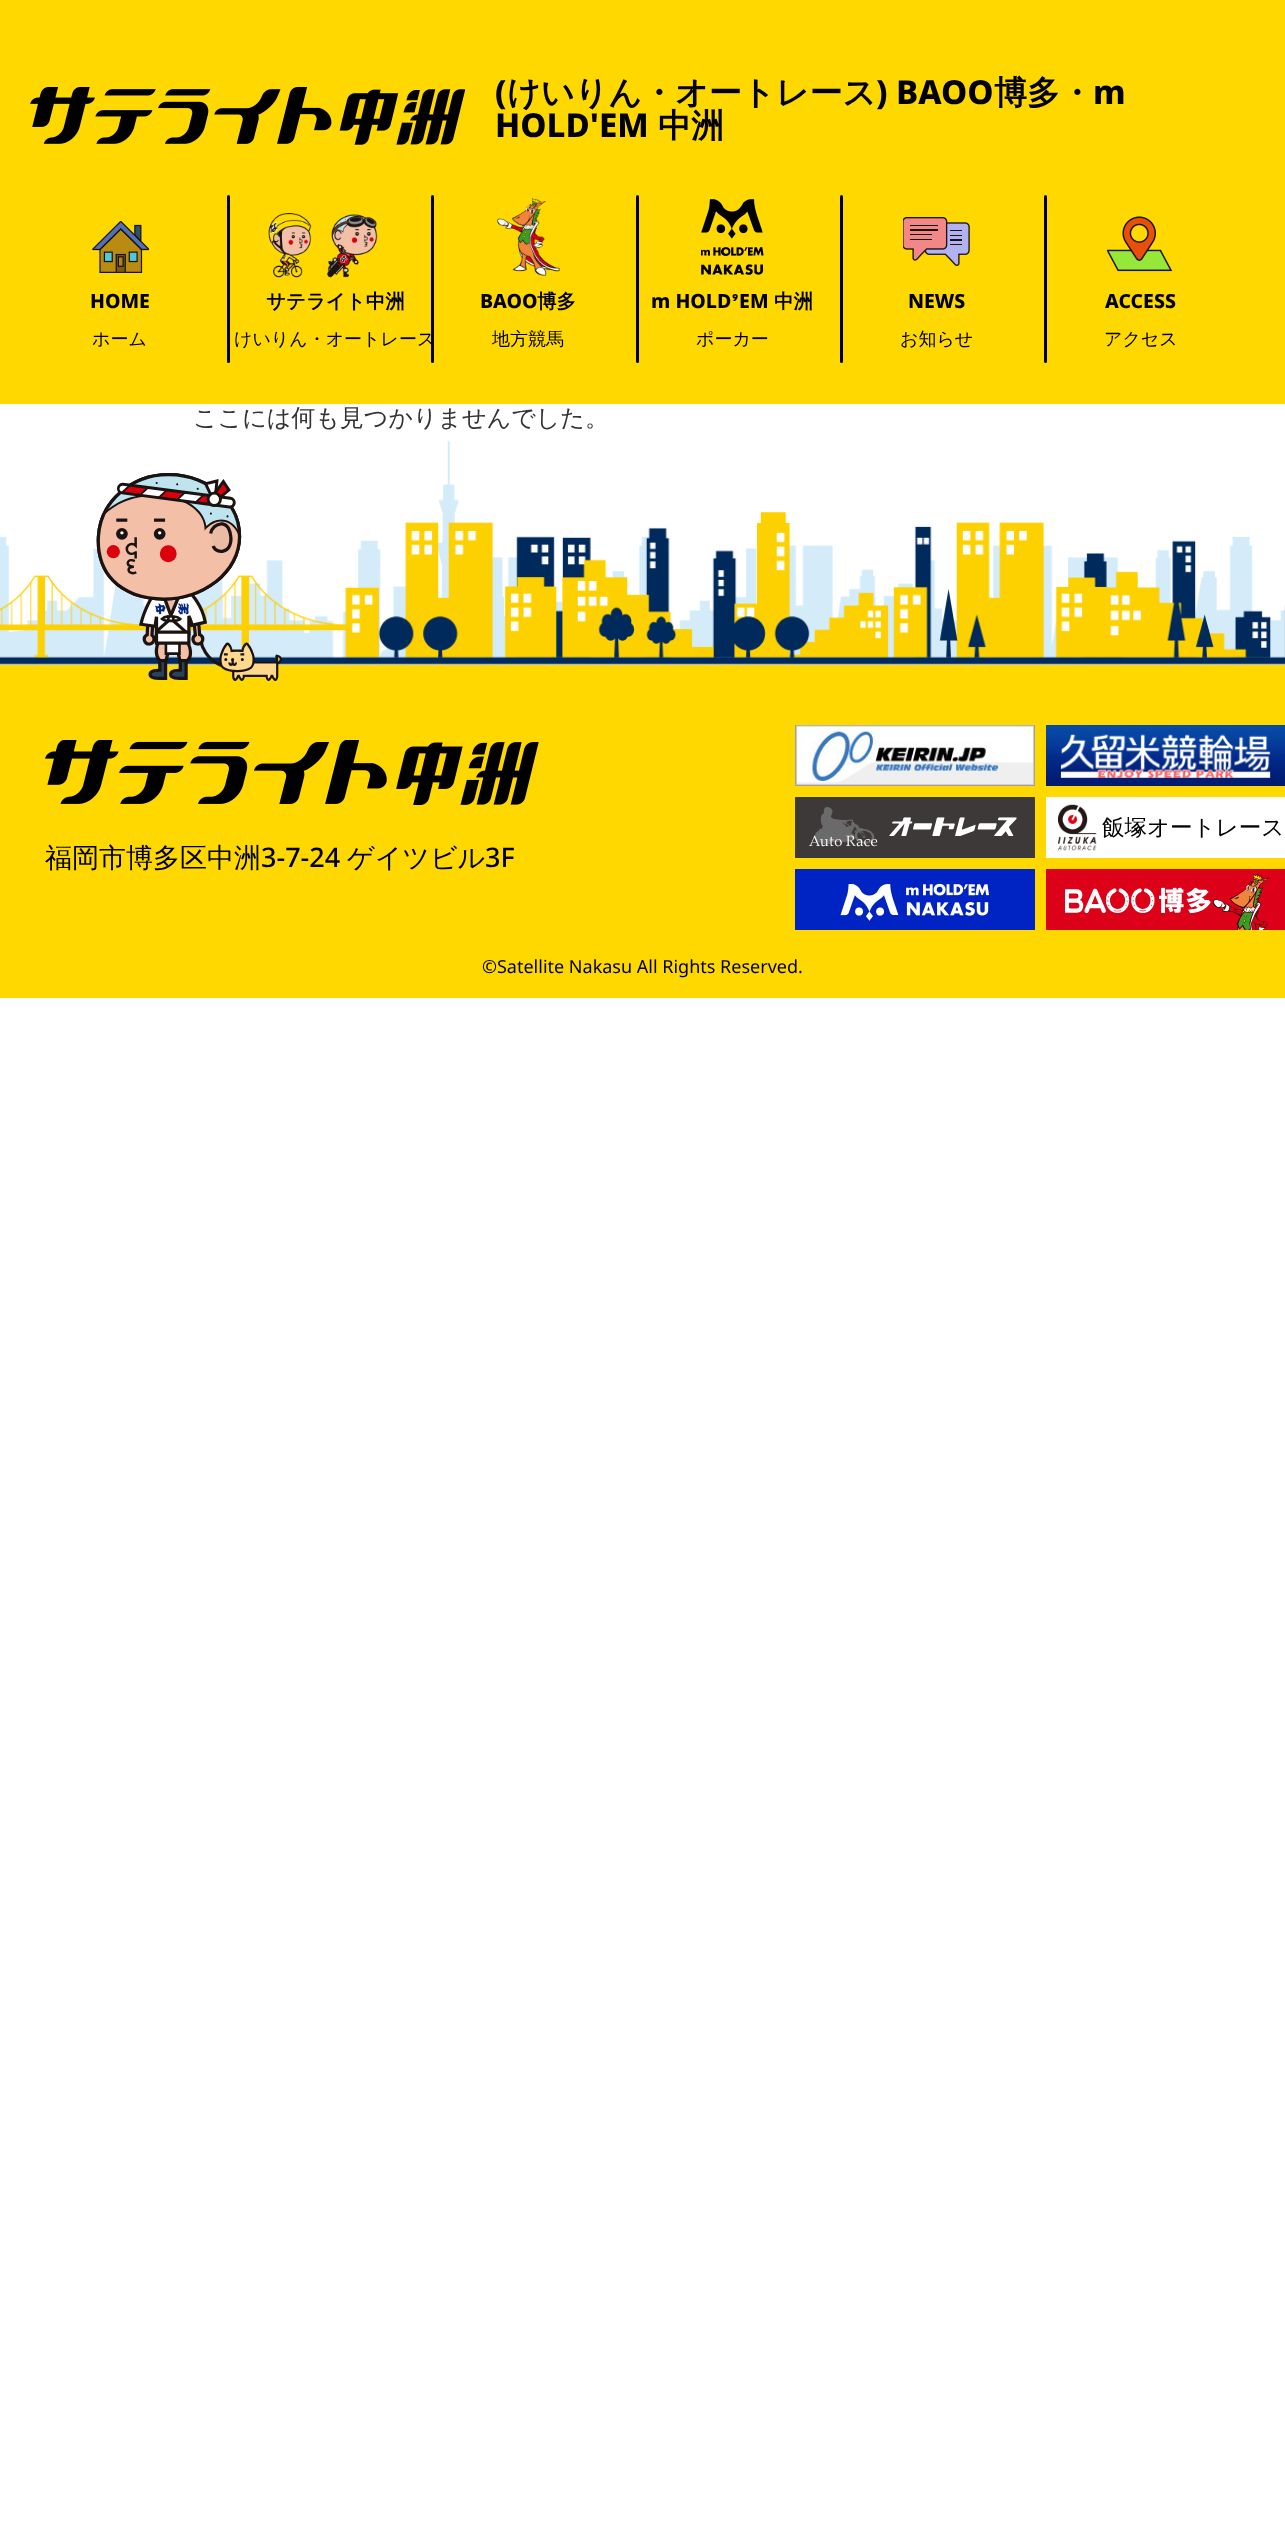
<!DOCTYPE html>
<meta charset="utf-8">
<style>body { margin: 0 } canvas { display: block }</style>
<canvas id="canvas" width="1285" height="2526"></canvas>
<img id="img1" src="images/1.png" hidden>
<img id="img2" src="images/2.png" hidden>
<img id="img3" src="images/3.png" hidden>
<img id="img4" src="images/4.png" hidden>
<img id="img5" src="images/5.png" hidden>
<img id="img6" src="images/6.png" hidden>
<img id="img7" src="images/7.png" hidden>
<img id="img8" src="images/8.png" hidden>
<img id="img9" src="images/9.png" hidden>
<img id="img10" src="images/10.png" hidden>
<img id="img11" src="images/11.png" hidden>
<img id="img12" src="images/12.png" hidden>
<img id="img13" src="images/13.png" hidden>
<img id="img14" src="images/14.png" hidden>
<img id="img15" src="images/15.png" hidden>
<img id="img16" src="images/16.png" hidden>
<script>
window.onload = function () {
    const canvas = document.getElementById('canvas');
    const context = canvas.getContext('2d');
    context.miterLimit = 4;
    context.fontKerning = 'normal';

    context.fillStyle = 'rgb(255, 255, 255)';
    context.fillRect(0, 0, 1285, 2526);
    context.fillStyle = 'rgb(255, 216, 0)';
    context.fillRect(0, 0, 1285, 404);
    context.drawImage(document.getElementById('img1'), 30, 87, 435, 58);
    context.drawImage(document.getElementById('img2'), 92, 221, 57, 52);
    context.fillStyle = 'rgb(0, 0, 0)';
    context.beginPath();
    context.roundRect(227, 195, 3, 168, 1.5);
    context.fill();
    context.drawImage(document.getElementById('img3'), 268, 213, 110, 65);
    context.beginPath();
    context.roundRect(431, 195, 3, 168, 1.5);
    context.fill();
    context.drawImage(document.getElementById('img4'), 497, 198, 63, 78);
    context.beginPath();
    context.roundRect(636, 195, 3, 168, 1.5);
    context.fill();
    context.drawImage(document.getElementById('img5'), 701, 199, 63, 76);
    context.beginPath();
    context.roundRect(840, 195, 3, 168, 1.5);
    context.fill();
    context.drawImage(document.getElementById('img6'), 903, 217, 67, 49);
    context.beginPath();
    context.roundRect(1044, 195, 3, 168, 1.5);
    context.fill();
    context.drawImage(document.getElementById('img7'), 1107, 216, 66, 56);
    context.drawImage(document.getElementById('img8'), 0, 440, 1285, 225);
    context.fillStyle = 'rgb(255, 216, 0)';
    context.fillRect(0, 665, 1285, 333);
    context.drawImage(document.getElementById('img9'), 96, 473, 186, 208);
    context.drawImage(document.getElementById('img10'), 45, 740, 494, 65);
    context.drawImage(document.getElementById('img11'), 795, 725, 240, 61);
    context.drawImage(document.getElementById('img12'), 795, 797, 240, 61);
    context.drawImage(document.getElementById('img13'), 795, 869, 240, 61);
    context.drawImage(document.getElementById('img14'), 1046, 725, 239, 61);
    context.drawImage(document.getElementById('img15'), 1046, 797, 239, 61);
    context.drawImage(document.getElementById('img16'), 1046, 869, 239, 61);
    context.font = '800 33px Noto Sans Myanmar';
    context.fillStyle = 'rgb(0, 0, 0)';
    context.fillText('(', 495, 104);
    context.font = 'bold 33px WenQuanYi Zen Hei';
    context.fillText('けいりん・オートレース', 507, 104);
    context.font = '800 33px Noto Sans Myanmar';
    context.fillText(') BAOO', 876, 104);
    context.font = 'bold 33px WenQuanYi Zen Hei';
    context.fillText('博多・', 994, 104);
    context.font = '800 33px Noto Sans Myanmar';
    context.fillText('m', 1093, 104);
    context.fillText('HOLD\'EM', 495, 137);
    context.font = 'bold 33px WenQuanYi Zen Hei';
    context.fillText('中洲', 658, 137);
    context.font = '800 19.5px Noto Sans Myanmar';
    context.fillText('HOME', 90, 308);
    context.font = '500 18px WenQuanYi Zen Hei';
    context.fillText('ホーム', 92, 345);
    context.font = 'bold 19.5px WenQuanYi Zen Hei';
    context.fillText('サテライト中洲', 266, 308);
    context.font = '500 18px WenQuanYi Zen Hei';
    context.fillText('けいりん・オートレース', 234, 345);
    context.font = '800 19.5px Noto Sans Myanmar';
    context.fillText('BAOO', 480, 308);
    context.font = 'bold 19.5px WenQuanYi Zen Hei';
    context.fillText('博多', 537, 308);
    context.font = '500 18px WenQuanYi Zen Hei';
    context.fillText('地方競馬', 492, 345);
    context.font = '800 19.5px Noto Sans Myanmar';
    context.fillText('m HOLD’EM', 651, 308);
    context.font = 'bold 19.5px WenQuanYi Zen Hei';
    context.fillText('中洲', 774, 308);
    context.font = '500 18px WenQuanYi Zen Hei';
    context.fillText('ポーカー', 696, 345);
    context.font = '800 19.5px Noto Sans Myanmar';
    context.fillText('NEWS', 908, 308);
    context.font = '500 18px WenQuanYi Zen Hei';
    context.fillText('お知らせ', 900, 345);
    context.font = '800 19.5px Noto Sans Myanmar';
    context.fillText('ACCESS', 1105, 308);
    context.font = '500 18px WenQuanYi Zen Hei';
    context.fillText('アクセス', 1104, 345);
    context.font = '500 24px WenQuanYi Zen Hei';
    context.fillStyle = 'rgb(51, 51, 51)';
    context.fillText('ここには何も見つかりませんでした。', 193, 426);
    context.font = '500 27px WenQuanYi Zen Hei';
    context.fillStyle = 'rgb(0, 0, 0)';
    context.fillText('福岡市博多区中洲', 45, 867);
    context.font = '500 27px Noto Sans Myanmar';
    context.fillText('3-7-24', 261, 867);
    context.font = '500 27px WenQuanYi Zen Hei';
    context.fillText('ゲイツビル', 347, 867);
    context.font = '500 27px Noto Sans Myanmar';
    context.fillText('3F', 485, 867);
    context.font = '18px Noto Sans Myanmar';
    context.fillText('©Satellite Nakasu All Rights Reserved.', 482, 973);
};
</script>
